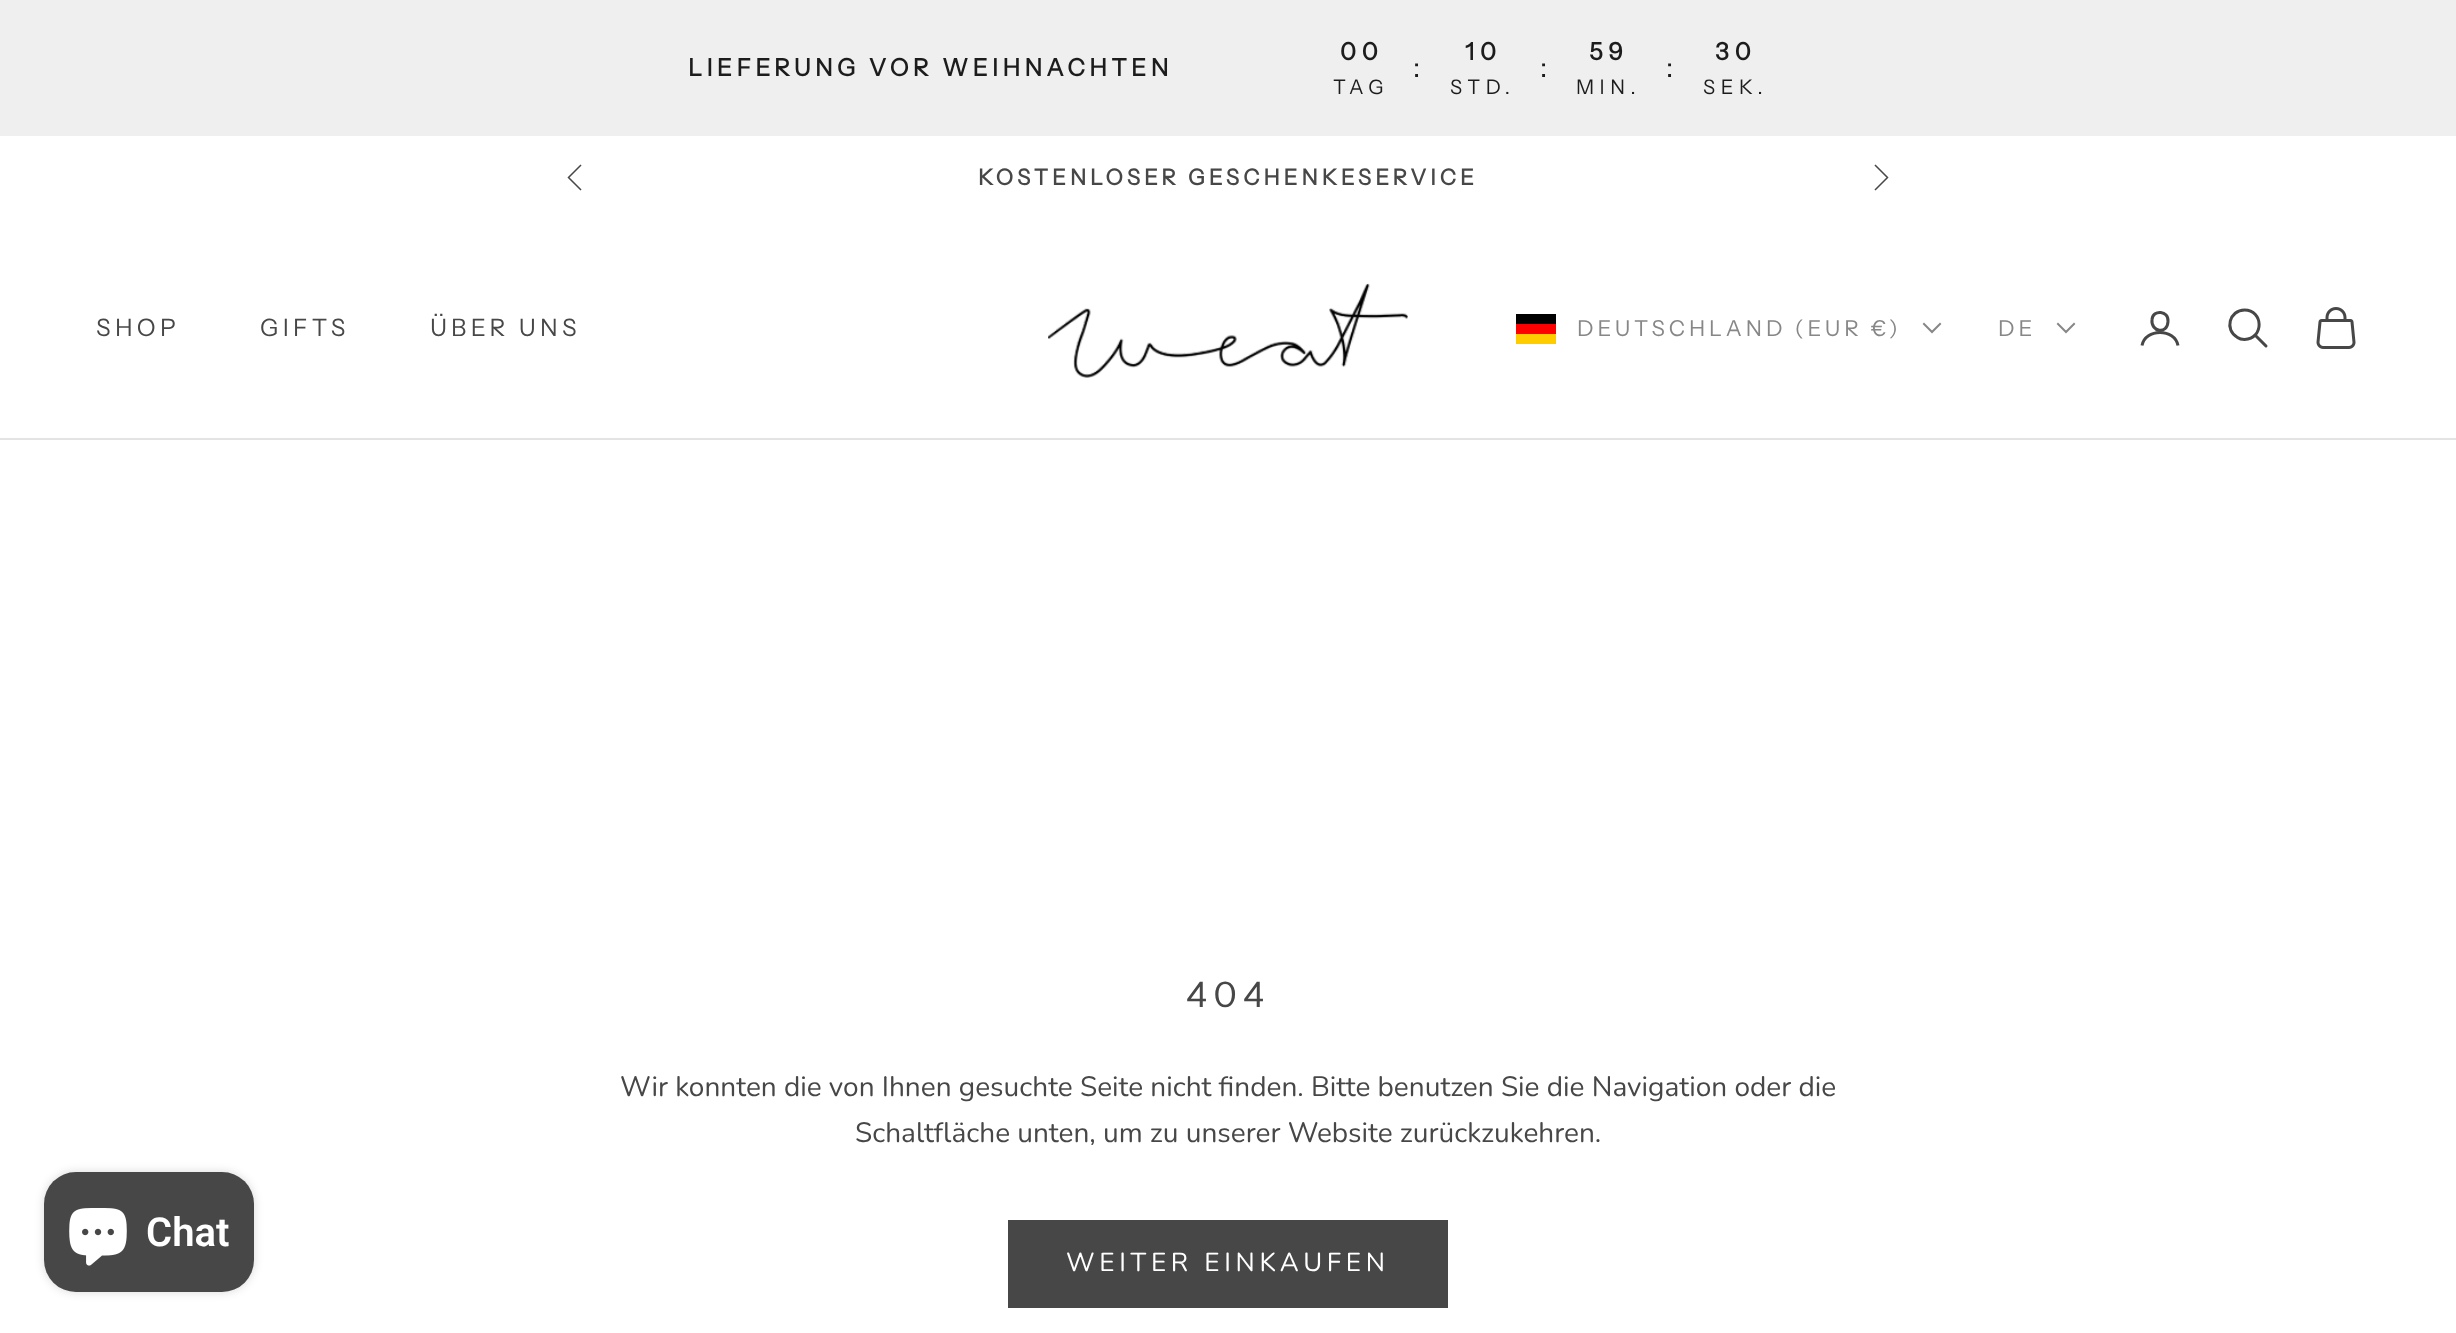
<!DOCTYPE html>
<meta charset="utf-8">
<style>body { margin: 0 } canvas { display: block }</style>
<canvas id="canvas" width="2456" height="1333"></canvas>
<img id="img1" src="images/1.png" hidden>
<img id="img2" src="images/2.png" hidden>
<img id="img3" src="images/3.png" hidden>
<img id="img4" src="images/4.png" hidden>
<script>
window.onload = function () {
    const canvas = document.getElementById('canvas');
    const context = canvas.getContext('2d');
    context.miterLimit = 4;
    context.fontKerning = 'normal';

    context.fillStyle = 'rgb(255, 255, 255)';
    context.fillRect(0, 0, 2456, 1333);
    context.fillStyle = 'rgb(239, 239, 239)';
    context.fillRect(0, 0, 2456, 136);
    context.beginPath();
    context.moveTo(580.5, 165.5);
    context.lineTo(568.5, 177.5);
    context.lineTo(580.5, 189.5);
    context.strokeStyle = 'rgb(71, 71, 71)';
    context.lineWidth = 1.5;
    context.lineCap = 'square';
    context.stroke();
    context.beginPath();
    context.moveTo(1875.5, 189.5);
    context.lineTo(1887.5, 177.5);
    context.lineTo(1875.5, 165.5);
    context.stroke();
    context.fillStyle = 'rgb(227, 227, 227)';
    context.fillRect(0, 438, 2456, 2);
    context.drawImage(document.getElementById('img1'), 1048, 283, 360, 95);
    context.drawImage(document.getElementById('img2'), 1516, 314, 40, 30);
    context.beginPath();
    context.moveTo(1924, 324);
    context.lineTo(1932, 332);
    context.lineTo(1940, 324);
    context.strokeStyle = 'rgb(135, 135, 135)';
    context.lineWidth = 2;
    context.stroke();
    context.beginPath();
    context.moveTo(2058, 324);
    context.lineTo(2066, 332);
    context.lineTo(2074, 324);
    context.stroke();
    context.beginPath();
    context.moveTo(2168, 321.5);
    context.bezierCurveTo(2167.5, 335, 2150.5, 332, 2152, 319.5);
    context.bezierCurveTo(2153, 309, 2169, 310.5, 2168, 321.5);
    context.closePath();
    context.strokeStyle = 'rgb(71, 71, 71)';
    context.lineWidth = 3;
    context.lineCap = 'round';
    context.lineJoin = 'round';
    context.stroke();
    context.beginPath();
    context.moveTo(2142, 345.5);
    context.bezierCurveTo(2145, 328, 2175, 328, 2178, 345.5);
    context.lineCap = 'butt';
    context.lineJoin = 'miter';
    context.stroke();
    context.beginPath();
    context.moveTo(2244.5, 310);
    context.bezierCurveTo(2229.5, 310, 2224, 330, 2237.5, 337.5);
    context.bezierCurveTo(2239.5, 339, 2242, 339.5, 2244.5, 339.5);
    context.bezierCurveTo(2264.5, 338.5, 2263.5, 310, 2244.5, 310);
    context.closePath();
    context.stroke();
    context.beginPath();
    context.moveTo(2255.5, 335.5);
    context.lineTo(2266, 346);
    context.lineCap = 'round';
    context.stroke();
    context.drawImage(document.getElementById('img3'), 2316, 307, 40, 42);
    context.fillStyle = 'rgba(0, 0, 0, 0.15)';
    context.filter = 'blur(5px)';
    context.beginPath();
    context.roundRect(44, 1172, 210, 120, 32);
    context.fill();
    context.filter = 'none';
    context.fillStyle = 'rgb(71, 71, 71)';
    context.beginPath();
    context.roundRect(44, 1172, 210, 120, 32);
    context.fill();
    context.drawImage(document.getElementById('img4'), 69, 1208, 58, 58);
    context.beginPath();
    context.rect(1009, 1221, 438, 86);
    context.fill();
    context.lineWidth = 2;
    context.stroke();
    context.letterSpacing = '4.3px';
    context.font = 'bold 24px Instrument Sans';
    context.fillStyle = 'rgb(28, 28, 28)';
    context.fillText('LIEFERUNG VOR WEIHNACHTEN', 688, 76);
    context.letterSpacing = '5.5px';
    context.fillText('00', 1340, 60);
    context.font = '20px Instrument Sans';
    context.fillText('TAG', 1333, 94);
    context.font = '28px Instrument Sans';
    context.fillText(':', 1413, 77);
    context.font = 'bold 24px Instrument Sans';
    context.fillText('10', 1465, 60);
    context.font = '20px Instrument Sans';
    context.fillText('STD.', 1450, 94);
    context.font = '28px Instrument Sans';
    context.fillText(':', 1540, 77);
    context.font = 'bold 24px Instrument Sans';
    context.fillText('59', 1589, 60);
    context.font = '20px Instrument Sans';
    context.fillText('MIN.', 1576, 94);
    context.font = '28px Instrument Sans';
    context.fillText(':', 1666, 77);
    context.font = 'bold 24px Instrument Sans';
    context.fillText('30', 1715, 60);
    context.font = '20px Instrument Sans';
    context.fillText('SEK.', 1703, 94);
    context.letterSpacing = '3.95px';
    context.font = 'bold 22px Instrument Sans';
    context.fillStyle = 'rgb(71, 71, 71)';
    context.fillText('KOSTENLOSER GESCHENKESERVICE', 978, 185);
    context.letterSpacing = '4.3px';
    context.font = '24px Instrument Sans';
    context.fillText('SHOP', 96, 336);
    context.fillText('GIFTS', 260, 336);
    context.fillText('ÜBER UNS', 430, 336);
    context.letterSpacing = '3.95px';
    context.font = '22px Instrument Sans';
    context.fillStyle = 'rgb(135, 135, 135)';
    context.fillText('DEUTSCHLAND (EUR €)', 1577, 336);
    context.fillText('DE', 1998, 336);
    context.letterSpacing = '0px';
    context.font = '600 40px Roboto';
    context.fillStyle = 'rgb(255, 255, 255)';
    context.fillText('Chat', 146, 1246);
    context.letterSpacing = '6.5px';
    context.font = '35px Instrument Sans';
    context.fillStyle = 'rgb(71, 71, 71)';
    context.fillText('404', 1186, 1007);
    context.letterSpacing = '0px';
    context.font = '28px Nunito';
    context.fillText('Wir konnten die von Ihnen gesuchte Seite nicht finden. Bitte benutzen Sie die Navigation oder die', 620, 1096);
    context.fillText('Schaltfläche unten, um zu unserer Website zurückzukehren.', 855, 1142);
    context.letterSpacing = '4.7px';
    context.font = '26px Nunito';
    context.fillStyle = 'rgb(255, 255, 255)';
    context.fillText('WEITER EINKAUFEN', 1066, 1271);
};
</script>
